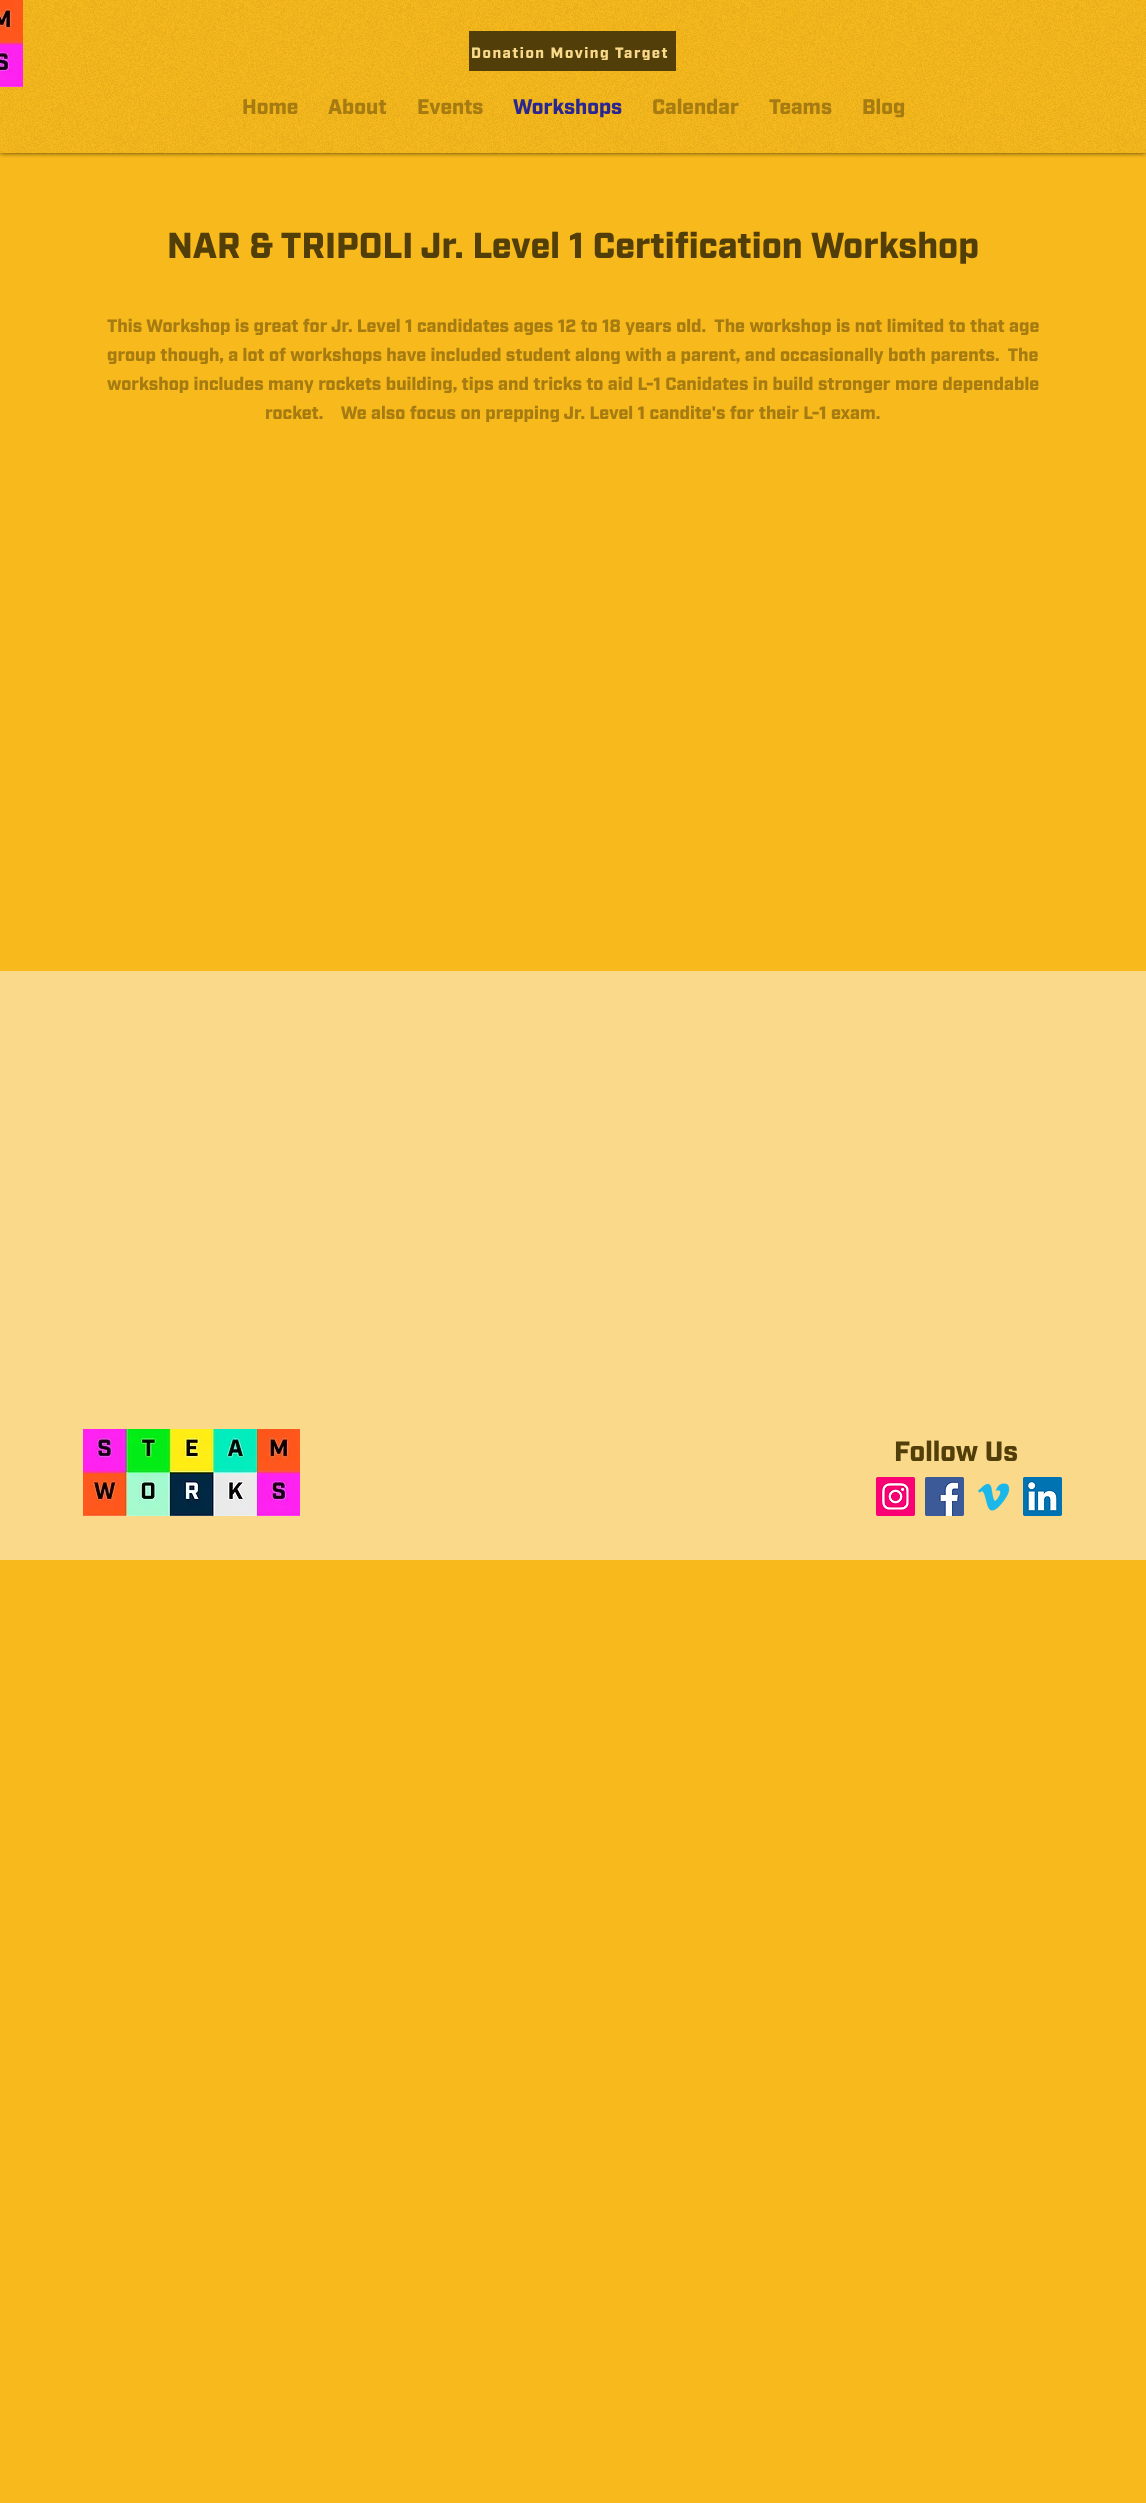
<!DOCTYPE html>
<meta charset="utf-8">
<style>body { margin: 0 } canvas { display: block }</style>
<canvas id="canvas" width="1146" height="2503"></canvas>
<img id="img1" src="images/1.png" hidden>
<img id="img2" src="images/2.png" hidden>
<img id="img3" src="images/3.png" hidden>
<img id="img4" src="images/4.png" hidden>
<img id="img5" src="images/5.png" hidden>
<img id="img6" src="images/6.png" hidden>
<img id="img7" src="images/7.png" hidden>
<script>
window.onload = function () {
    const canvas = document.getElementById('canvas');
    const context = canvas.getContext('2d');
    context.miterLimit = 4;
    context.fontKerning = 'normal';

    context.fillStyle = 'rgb(247, 185, 27)';
    context.fillRect(0, 0, 1146, 2503);
    context.save();
    context.beginPath();
    context.rect(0, 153, 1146, 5);
    context.clip();
    context.fillStyle = 'rgba(0, 0, 0, 0.7)';
    context.filter = 'blur(2.5px)';
    context.beginPath();
    context.rect(0, 0, 1146, 153);
    context.fill();
    context.filter = 'none';
    context.restore();
    context.drawImage(document.getElementById('img1'), 0, 0, 1146, 153);
    context.drawImage(document.getElementById('img2'), 0, 0, 23, 87);
    context.fillStyle = 'rgb(82, 62, 9)';
    context.fillRect(469, 31, 207, 40);
    context.fillStyle = 'rgb(250, 218, 138)';
    context.fillRect(0, 971, 1146, 589);
    context.drawImage(document.getElementById('img3'), 83, 1429, 217, 87);
    context.drawImage(document.getElementById('img4'), 876, 1477, 39, 39);
    context.drawImage(document.getElementById('img5'), 925, 1477, 39, 39);
    context.drawImage(document.getElementById('img6'), 978, 1483, 32, 28);
    context.drawImage(document.getElementById('img7'), 1023, 1477, 39, 39);
    context.save();
    context.beginPath();
    context.rect(471, 42, 199, 18);
    context.clip();
    context.letterSpacing = '1.5px';
    context.font = '900 15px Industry';
    context.fillText('Donation Moving Target', 471, 58);
    context.restore();
    context.font = '900 21px Industry';
    context.fillStyle = 'rgb(165, 123, 18)';
    context.fillText('Home', 242, 114);
    context.fillText('About', 328, 114);
    context.fillText('Events', 417, 114);
    context.fillStyle = 'rgb(43, 39, 145)';
    context.fillText('Workshops', 513, 114);
    context.fillStyle = 'rgb(165, 123, 18)';
    context.fillText('Calendar', 652, 114);
    context.fillText('Teams', 769, 114);
    context.fillText('Blog', 862, 114);
    context.font = '900 36px Industry';
    context.fillStyle = 'rgb(82, 62, 9)';
    context.fillText('NAR & TRIPOLI Jr. Level 1 Certification Workshop', 167, 258);
    context.font = '900 18px Industry';
    context.fillStyle = 'rgb(165, 123, 18)';
    context.fillText('This Workshop is great for Jr. Level 1 candidates ages 12 to 18 years old.  The workshop is not limited to that age', 107, 332);
    context.fillText('group though, a lot of workshops have included student along with a parent, and occasionally both parents.  The', 107, 361);
    context.fillText('workshop includes many rockets building, tips and tricks to aid L-1 Canidates in build stronger more dependable', 107, 390);
    context.fillText('rocket.    We also focus on prepping Jr. Level 1 candite\'s for their L-1 exam.', 265, 419);
    context.font = '900 28px Industry';
    context.fillStyle = 'rgb(82, 62, 9)';
    context.fillText('Follow Us', 894, 1461);
};
</script>
